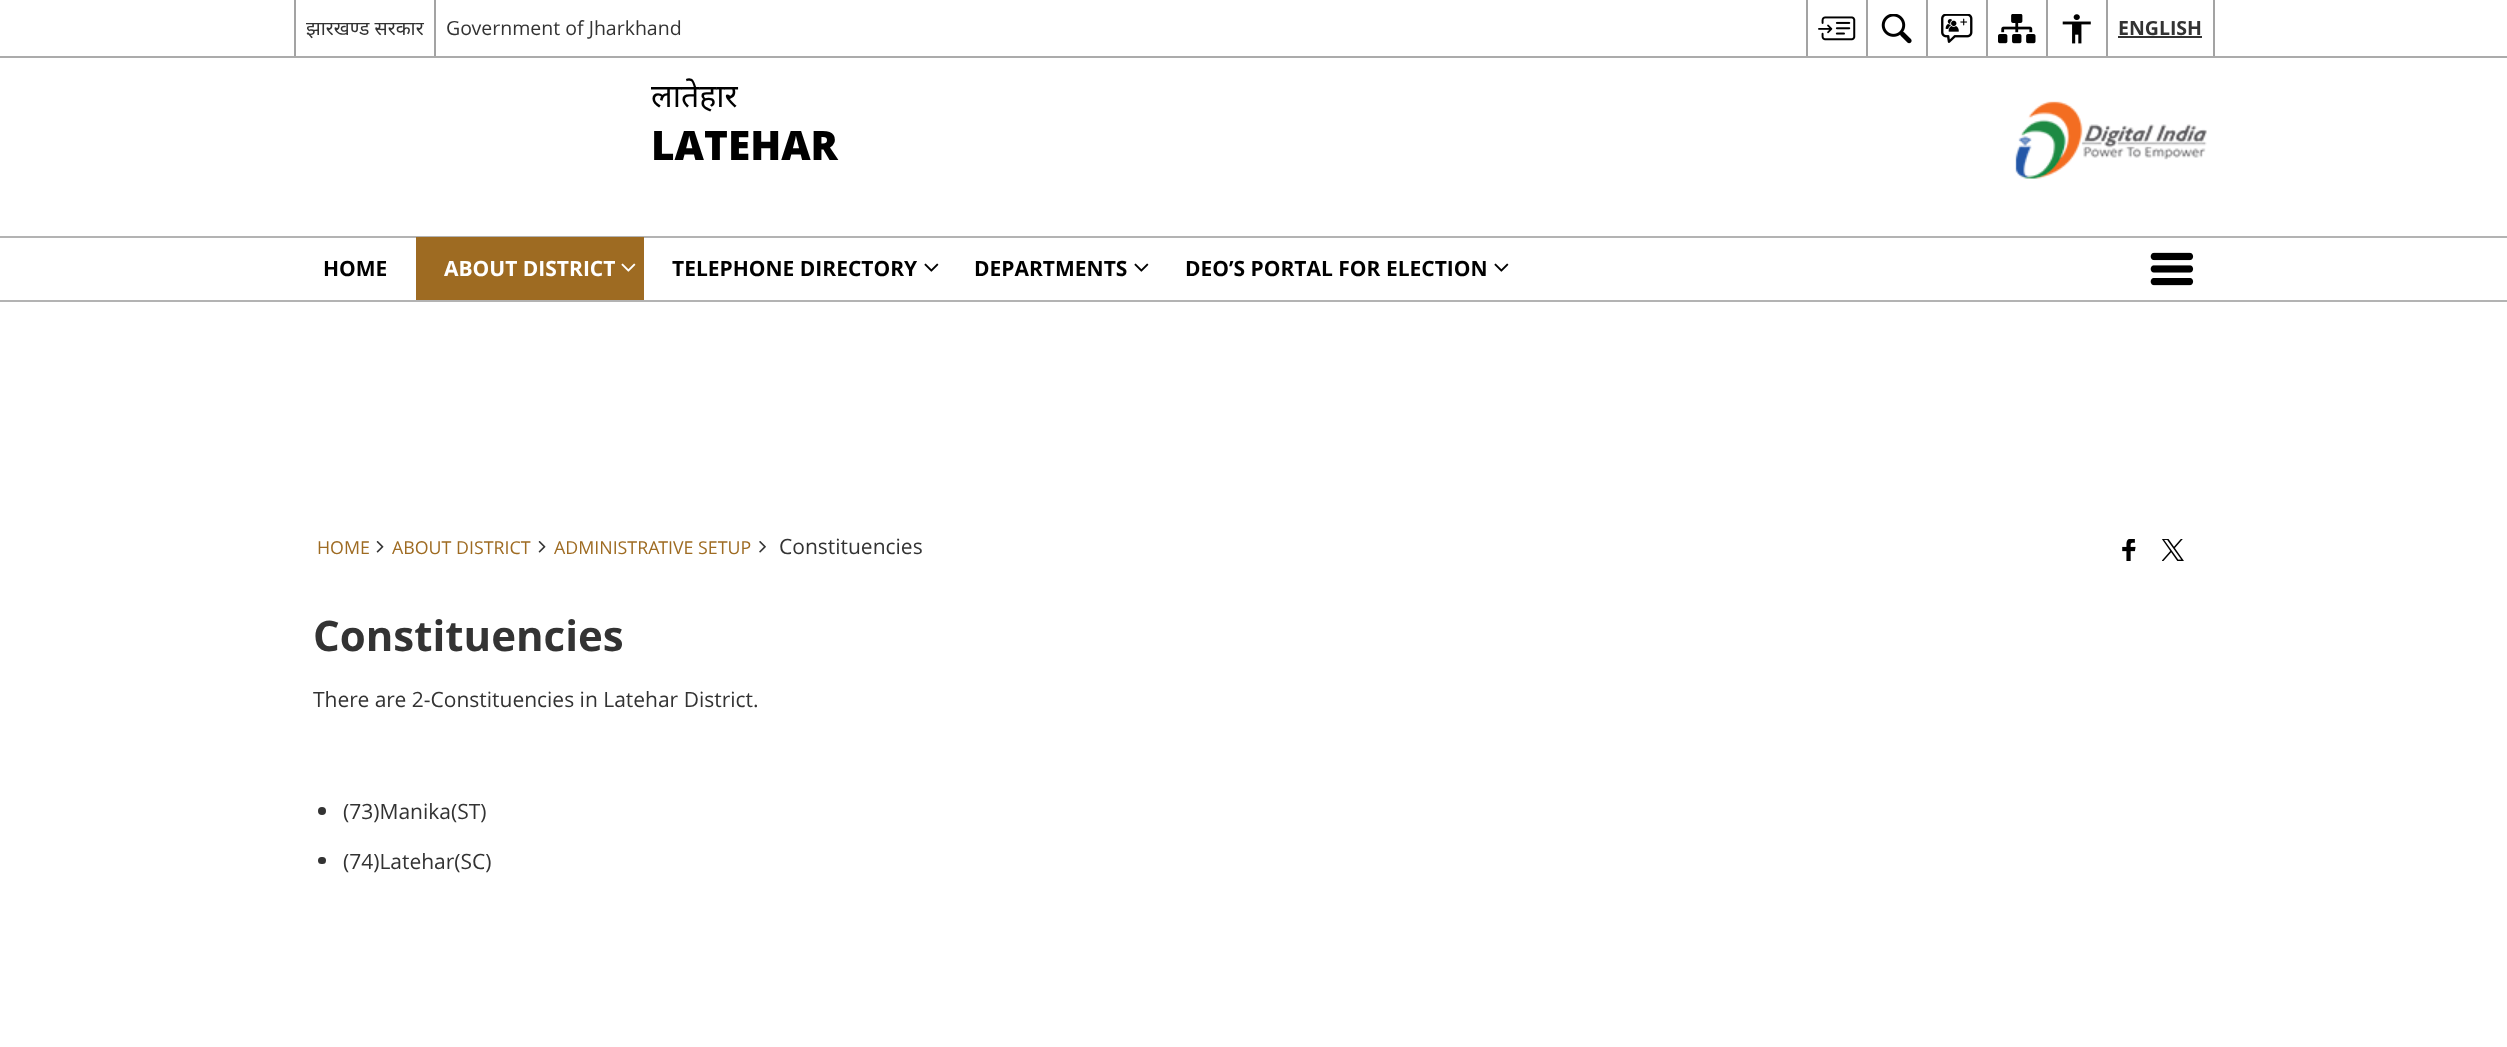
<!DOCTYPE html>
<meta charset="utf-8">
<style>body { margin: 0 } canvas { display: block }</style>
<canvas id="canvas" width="2507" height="1047"></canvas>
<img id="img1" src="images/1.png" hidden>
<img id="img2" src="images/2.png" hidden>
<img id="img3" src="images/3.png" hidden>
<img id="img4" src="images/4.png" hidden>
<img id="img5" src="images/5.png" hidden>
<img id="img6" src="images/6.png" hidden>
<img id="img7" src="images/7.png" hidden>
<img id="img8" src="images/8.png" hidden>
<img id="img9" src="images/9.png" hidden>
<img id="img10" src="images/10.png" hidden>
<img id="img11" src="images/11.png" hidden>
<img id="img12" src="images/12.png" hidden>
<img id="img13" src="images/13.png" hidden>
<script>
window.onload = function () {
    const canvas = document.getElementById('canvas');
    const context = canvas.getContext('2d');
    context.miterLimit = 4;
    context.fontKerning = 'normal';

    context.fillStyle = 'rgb(255, 255, 255)';
    context.fillRect(0, 0, 2507, 1047);
    context.fillStyle = 'rgb(171, 171, 171)';
    context.fillRect(0, 56, 2507, 2);
    context.fillStyle = 'rgb(163, 163, 163)';
    context.fillRect(294, 0, 2, 56);
    context.fillRect(434, 0, 2, 56);
    context.fillRect(1806, 0, 2, 56);
    context.drawImage(document.getElementById('img1'), 1818, 16, 38, 25);
    context.fillRect(1866, 0, 2, 56);
    context.drawImage(document.getElementById('img2'), 1881, 14, 31, 30);
    context.fillRect(1926, 0, 2, 56);
    context.drawImage(document.getElementById('img3'), 1941, 14, 32, 29);
    context.fillRect(1986, 0, 2, 56);
    context.drawImage(document.getElementById('img4'), 1998, 14, 38, 30);
    context.fillRect(2046, 0, 2, 56);
    context.drawImage(document.getElementById('img5'), 2062, 14, 29, 30);
    context.fillRect(2213, 0, 2, 56);
    context.fillRect(2106, 0, 2, 56);
    context.fillStyle = 'rgb(51, 51, 51)';
    context.fillRect(2118, 36, 84, 2);
    context.drawImage(document.getElementById('img6'), 2015, 101, 192, 78);
    context.fillStyle = 'rgb(179, 179, 179)';
    context.fillRect(0, 236, 2507, 2);
    context.fillRect(0, 300, 2507, 2);
    context.fillStyle = 'rgb(158, 107, 34)';
    context.fillRect(416, 237, 228, 63);
    context.drawImage(document.getElementById('img7'), 621, 263, 15, 9);
    context.drawImage(document.getElementById('img8'), 924, 263, 15, 9);
    context.drawImage(document.getElementById('img8'), 1134, 263, 15, 9);
    context.drawImage(document.getElementById('img8'), 1494, 263, 15, 9);
    context.drawImage(document.getElementById('img9'), 2150, 252, 44, 34);
    context.drawImage(document.getElementById('img10'), 376, 541, 8, 12);
    context.drawImage(document.getElementById('img10'), 538, 541, 8, 12);
    context.drawImage(document.getElementById('img11'), 759, 541, 7, 12);
    context.drawImage(document.getElementById('img12'), 2122, 539, 14, 22);
    context.drawImage(document.getElementById('img13'), 2162, 539, 22, 22);
    context.fillStyle = 'rgb(51, 51, 51)';
    context.beginPath();
    context.arc(322, 811, 4, 0, 2 * Math.PI);
    context.fill();
    context.beginPath();
    context.roundRect(318, 857, 8, 7, 3.5);
    context.fill();
    context.font = '19.5px Noto Sans';
    context.fillText('झारखण्ड सरकार', 306, 35);
    context.font = '19.5px Open Sans';
    context.fillText('Government of Jharkhand', 446, 35);
    context.font = 'bold 19.5px Open Sans';
    context.fillText('ENGLISH', 2118, 35);
    context.font = '32px Noto Sans';
    context.fillStyle = 'rgb(0, 0, 0)';
    context.fillText('लातेहार', 651, 107);
    context.font = '800 40.5px Open Sans';
    context.fillText('LATEHAR', 651, 160);
    context.font = 'bold 21px Open Sans';
    context.fillText('HOME', 323, 276);
    context.fillStyle = 'rgb(255, 255, 255)';
    context.fillText('ABOUT DISTRICT', 444, 276);
    context.fillStyle = 'rgb(0, 0, 0)';
    context.fillText('TELEPHONE DIRECTORY', 672, 276);
    context.fillText('DEPARTMENTS', 974, 276);
    context.fillText('DEO’S PORTAL FOR ELECTION', 1185, 276);
    context.font = '17.8px Open Sans';
    context.fillStyle = 'rgb(158, 107, 34)';
    context.fillText('HOME', 317, 554);
    context.fillText('ABOUT DISTRICT', 392, 554);
    context.fillText('ADMINISTRATIVE SETUP', 554, 554);
    context.font = '21px Open Sans';
    context.fillStyle = 'rgb(51, 51, 51)';
    context.fillText('Constituencies', 779, 554);
    context.font = 'bold 42px Open Sans';
    context.fillText('Constituencies', 313, 651);
    context.font = '21px Open Sans';
    context.fillText('There are 2-Constituencies in Latehar District.', 313, 707);
    context.fillText('(73)Manika(ST)', 343, 819);
    context.fillText('(74)Latehar(SC)', 343, 869);
};
</script>
